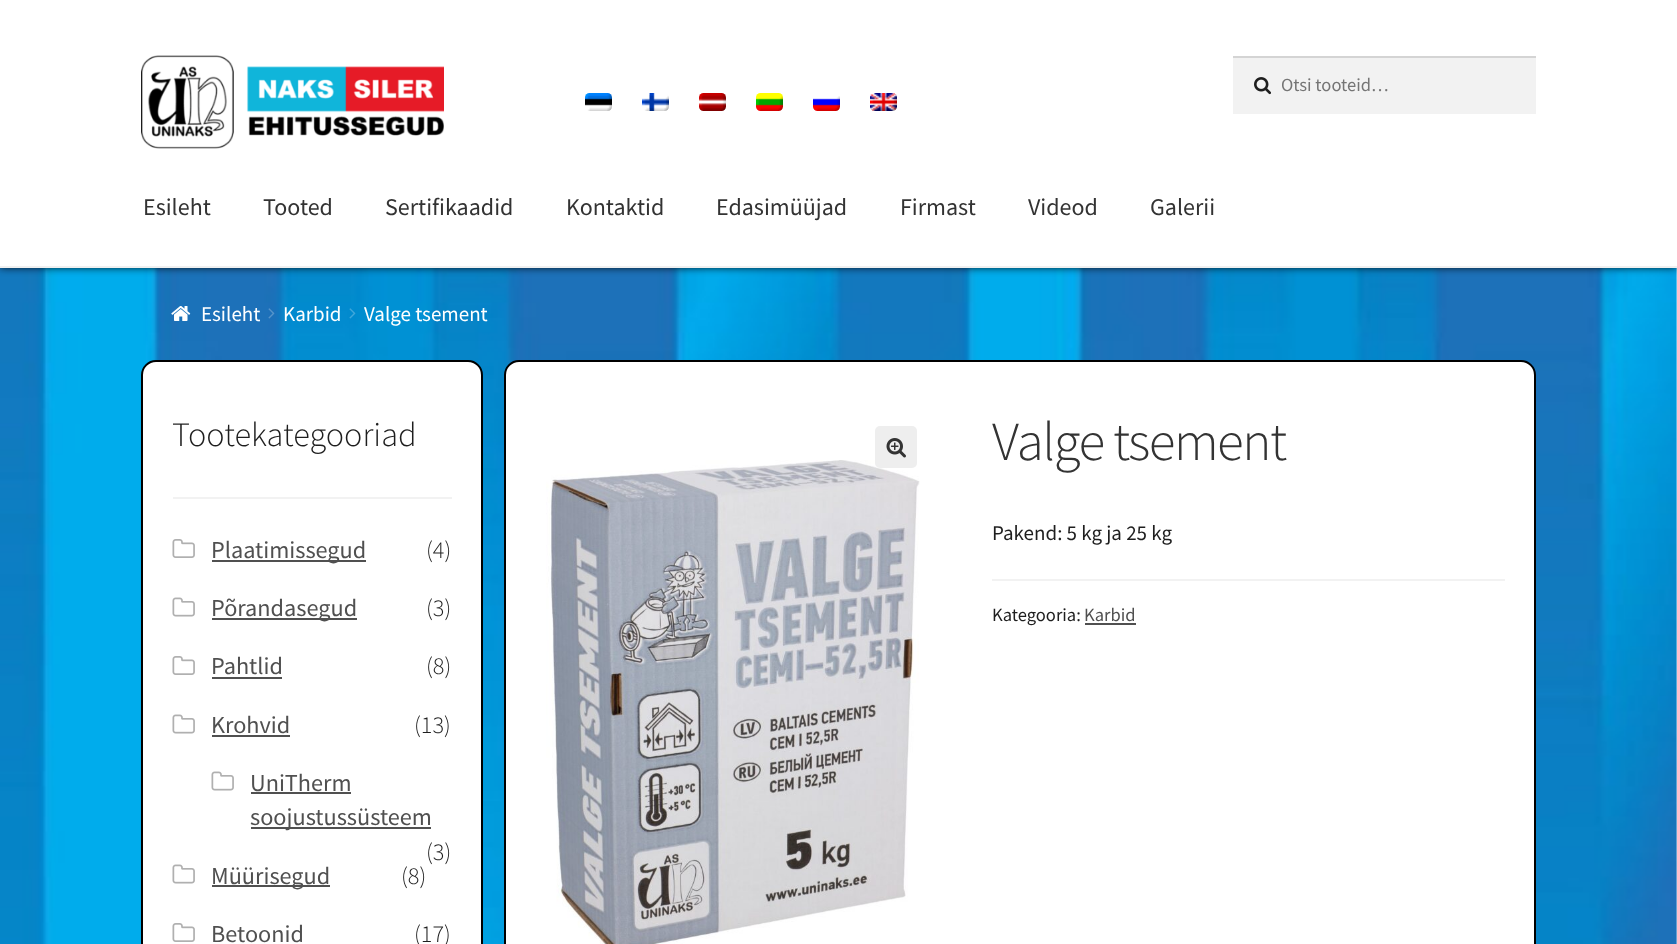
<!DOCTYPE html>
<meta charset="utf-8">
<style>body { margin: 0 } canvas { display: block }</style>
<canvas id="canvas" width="1677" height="944"></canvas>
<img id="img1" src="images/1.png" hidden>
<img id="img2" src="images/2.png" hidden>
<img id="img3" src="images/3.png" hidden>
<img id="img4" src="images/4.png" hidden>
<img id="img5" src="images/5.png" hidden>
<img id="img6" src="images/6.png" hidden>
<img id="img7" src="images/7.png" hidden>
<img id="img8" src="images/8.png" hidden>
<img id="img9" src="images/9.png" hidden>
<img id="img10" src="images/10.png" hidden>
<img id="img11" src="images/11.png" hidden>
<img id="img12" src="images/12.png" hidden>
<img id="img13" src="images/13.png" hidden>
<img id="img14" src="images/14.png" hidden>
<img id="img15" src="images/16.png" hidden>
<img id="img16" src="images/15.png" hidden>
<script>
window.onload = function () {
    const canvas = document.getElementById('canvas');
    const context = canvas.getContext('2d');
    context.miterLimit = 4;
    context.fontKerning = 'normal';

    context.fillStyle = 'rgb(255, 255, 255)';
    context.fillRect(0, 0, 1677, 944);
    context.drawImage(document.getElementById('img1'), 0, 268, 1677, 676);
    context.fillStyle = 'rgb(0, 0, 0)';
    context.filter = 'blur(4px)';
    context.beginPath();
    context.rect(0, 0, 1677, 267);
    context.fill();
    context.filter = 'none';
    context.fillStyle = 'rgb(255, 255, 255)';
    context.fillRect(0, 0, 1677, 266);
    context.fillStyle = 'rgb(240, 240, 240)';
    context.fillRect(0, 266, 1677, 2);
    context.drawImage(document.getElementById('img2'), 141, 55, 303, 94);
    context.fillStyle = 'rgb(242, 242, 242)';
    context.fillRect(1233, 58, 303, 56);
    context.drawImage(document.getElementById('img3'), 1254, 77, 17, 18);
    context.fillStyle = 'rgb(212, 212, 212)';
    context.fillRect(1233, 56, 303, 2);
    context.drawImage(document.getElementById('img4'), 585, 93, 27, 18);
    context.drawImage(document.getElementById('img5'), 642, 93, 27, 18);
    context.drawImage(document.getElementById('img6'), 699, 93, 27, 18);
    context.drawImage(document.getElementById('img7'), 756, 93, 27, 18);
    context.drawImage(document.getElementById('img8'), 813, 96, 27, 15);
    context.drawImage(document.getElementById('img9'), 870, 93, 27, 18);
    context.drawImage(document.getElementById('img10'), 171, 306, 20, 15);
    context.drawImage(document.getElementById('img11'), 268, 308, 7, 11);
    context.drawImage(document.getElementById('img12'), 349, 308, 7, 11);
    context.fillStyle = 'rgb(255, 255, 255)';
    context.beginPath();
    context.roundRect(142, 361, 340, 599, 14);
    context.fill();
    context.strokeStyle = 'rgb(0, 0, 0)';
    context.lineWidth = 2;
    context.stroke();
    context.fillStyle = 'rgb(242, 242, 242)';
    context.fillRect(173, 497, 279, 2);
    context.drawImage(document.getElementById('img13'), 172, 539, 23, 19);
    context.fillStyle = 'rgb(80, 80, 80)';
    context.fillRect(212, 560, 154, 2);
    context.drawImage(document.getElementById('img14'), 172, 597, 23, 20);
    context.fillRect(212, 618, 145, 2);
    context.drawImage(document.getElementById('img13'), 172, 656, 23, 19);
    context.fillRect(212, 677, 70, 2);
    context.drawImage(document.getElementById('img14'), 172, 714, 23, 20);
    context.fillRect(212, 735, 78, 2);
    context.drawImage(document.getElementById('img14'), 211, 771, 23, 20);
    context.fillRect(251, 792, 100, 2);
    context.fillRect(251, 827, 180, 2);
    context.drawImage(document.getElementById('img14'), 172, 864, 23, 20);
    context.fillRect(212, 885, 118, 2);
    context.drawImage(document.getElementById('img13'), 172, 923, 23, 19);
    context.fillStyle = 'rgb(255, 255, 255)';
    context.beginPath();
    context.roundRect(505, 361, 1030, 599, 14);
    context.fill();
    context.stroke();
    context.drawImage(document.getElementById('img15'), 546, 460, 374, 484);
    context.fillStyle = 'rgb(238, 238, 238)';
    context.beginPath();
    context.roundRect(875, 426, 42, 42, 5);
    context.fill();
    context.drawImage(document.getElementById('img16'), 886, 438, 20, 20);
    context.fillStyle = 'rgb(242, 242, 242)';
    context.fillRect(992, 579, 513, 2);
    context.fillStyle = 'rgb(80, 80, 80)';
    context.fillRect(1085, 623, 51, 2);
    context.font = '18.5px Source Sans Pro';
    context.fillStyle = 'rgb(117, 117, 117)';
    context.fillText('Otsi tooteid…', 1281, 91);
    context.font = '24px Source Sans Pro';
    context.fillStyle = 'rgb(51, 51, 51)';
    context.fillText('Esileht', 143, 215);
    context.fillText('Tooted', 263, 215);
    context.fillText('Sertifikaadid', 385, 215);
    context.fillText('Kontaktid', 566, 215);
    context.fillText('Edasimüüjad', 716, 215);
    context.fillText('Firmast', 900, 215);
    context.fillText('Videod', 1028, 215);
    context.fillText('Galerii', 1150, 215);
    context.font = '21px Source Sans Pro';
    context.fillStyle = 'rgb(255, 255, 255)';
    context.fillText('Esileht', 201, 321);
    context.fillText('Karbid', 283, 321);
    context.fillText('Valge tsement', 364, 321);
    context.font = '300 34.25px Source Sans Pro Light';
    context.fillStyle = 'rgb(30, 30, 30)';
    context.fillText('Tootekategooriad', 172, 446);
    context.font = '24.25px Source Sans Pro';
    context.fillStyle = 'rgb(80, 80, 80)';
    context.fillText('Plaatimissegud', 211, 558);
    context.font = '300 24.25px Source Sans Pro Light';
    context.fillStyle = 'rgb(30, 30, 30)';
    context.fillText('(4)', 426, 558);
    context.font = '24.25px Source Sans Pro';
    context.fillStyle = 'rgb(80, 80, 80)';
    context.fillText('Põrandasegud', 211, 616);
    context.font = '300 24.25px Source Sans Pro Light';
    context.fillStyle = 'rgb(30, 30, 30)';
    context.fillText('(3)', 426, 616);
    context.font = '24.25px Source Sans Pro';
    context.fillStyle = 'rgb(80, 80, 80)';
    context.fillText('Pahtlid', 211, 674);
    context.font = '300 24.25px Source Sans Pro Light';
    context.fillStyle = 'rgb(30, 30, 30)';
    context.fillText('(8)', 426, 674);
    context.font = '24.25px Source Sans Pro';
    context.fillStyle = 'rgb(80, 80, 80)';
    context.fillText('Krohvid', 211, 733);
    context.font = '300 24.25px Source Sans Pro Light';
    context.fillStyle = 'rgb(30, 30, 30)';
    context.fillText('(13)', 414, 733);
    context.font = '24.25px Source Sans Pro';
    context.fillStyle = 'rgb(80, 80, 80)';
    context.fillText('UniTherm', 250, 791);
    context.fillText('soojustussüsteem', 250, 825);
    context.font = '300 24.25px Source Sans Pro Light';
    context.fillStyle = 'rgb(30, 30, 30)';
    context.fillText('(3)', 426, 860);
    context.font = '24.25px Source Sans Pro';
    context.fillStyle = 'rgb(80, 80, 80)';
    context.fillText('Müürisegud', 211, 884);
    context.font = '300 24.25px Source Sans Pro Light';
    context.fillStyle = 'rgb(30, 30, 30)';
    context.fillText('(8)', 401, 884);
    context.font = '24.25px Source Sans Pro';
    context.fillStyle = 'rgb(80, 80, 80)';
    context.fillText('Betoonid', 211, 942);
    context.font = '300 24.25px Source Sans Pro Light';
    context.fillStyle = 'rgb(30, 30, 30)';
    context.fillText('(17)', 414, 942);
    context.letterSpacing = '-1.5px';
    context.font = '300 55px Source Sans Pro Light';
    context.fillStyle = 'rgb(51, 51, 51)';
    context.fillText('Valge tsement', 992, 460);
    context.letterSpacing = '0px';
    context.font = '21px Source Sans Pro';
    context.fillStyle = 'rgb(30, 30, 30)';
    context.fillText('Pakend: 5 kg ja 25 kg', 992, 540);
    context.font = '18.5px Source Sans Pro';
    context.fillText('Kategooria:', 992, 621);
    context.fillStyle = 'rgb(80, 80, 80)';
    context.fillText('Karbid', 1084, 621);
};
</script>
